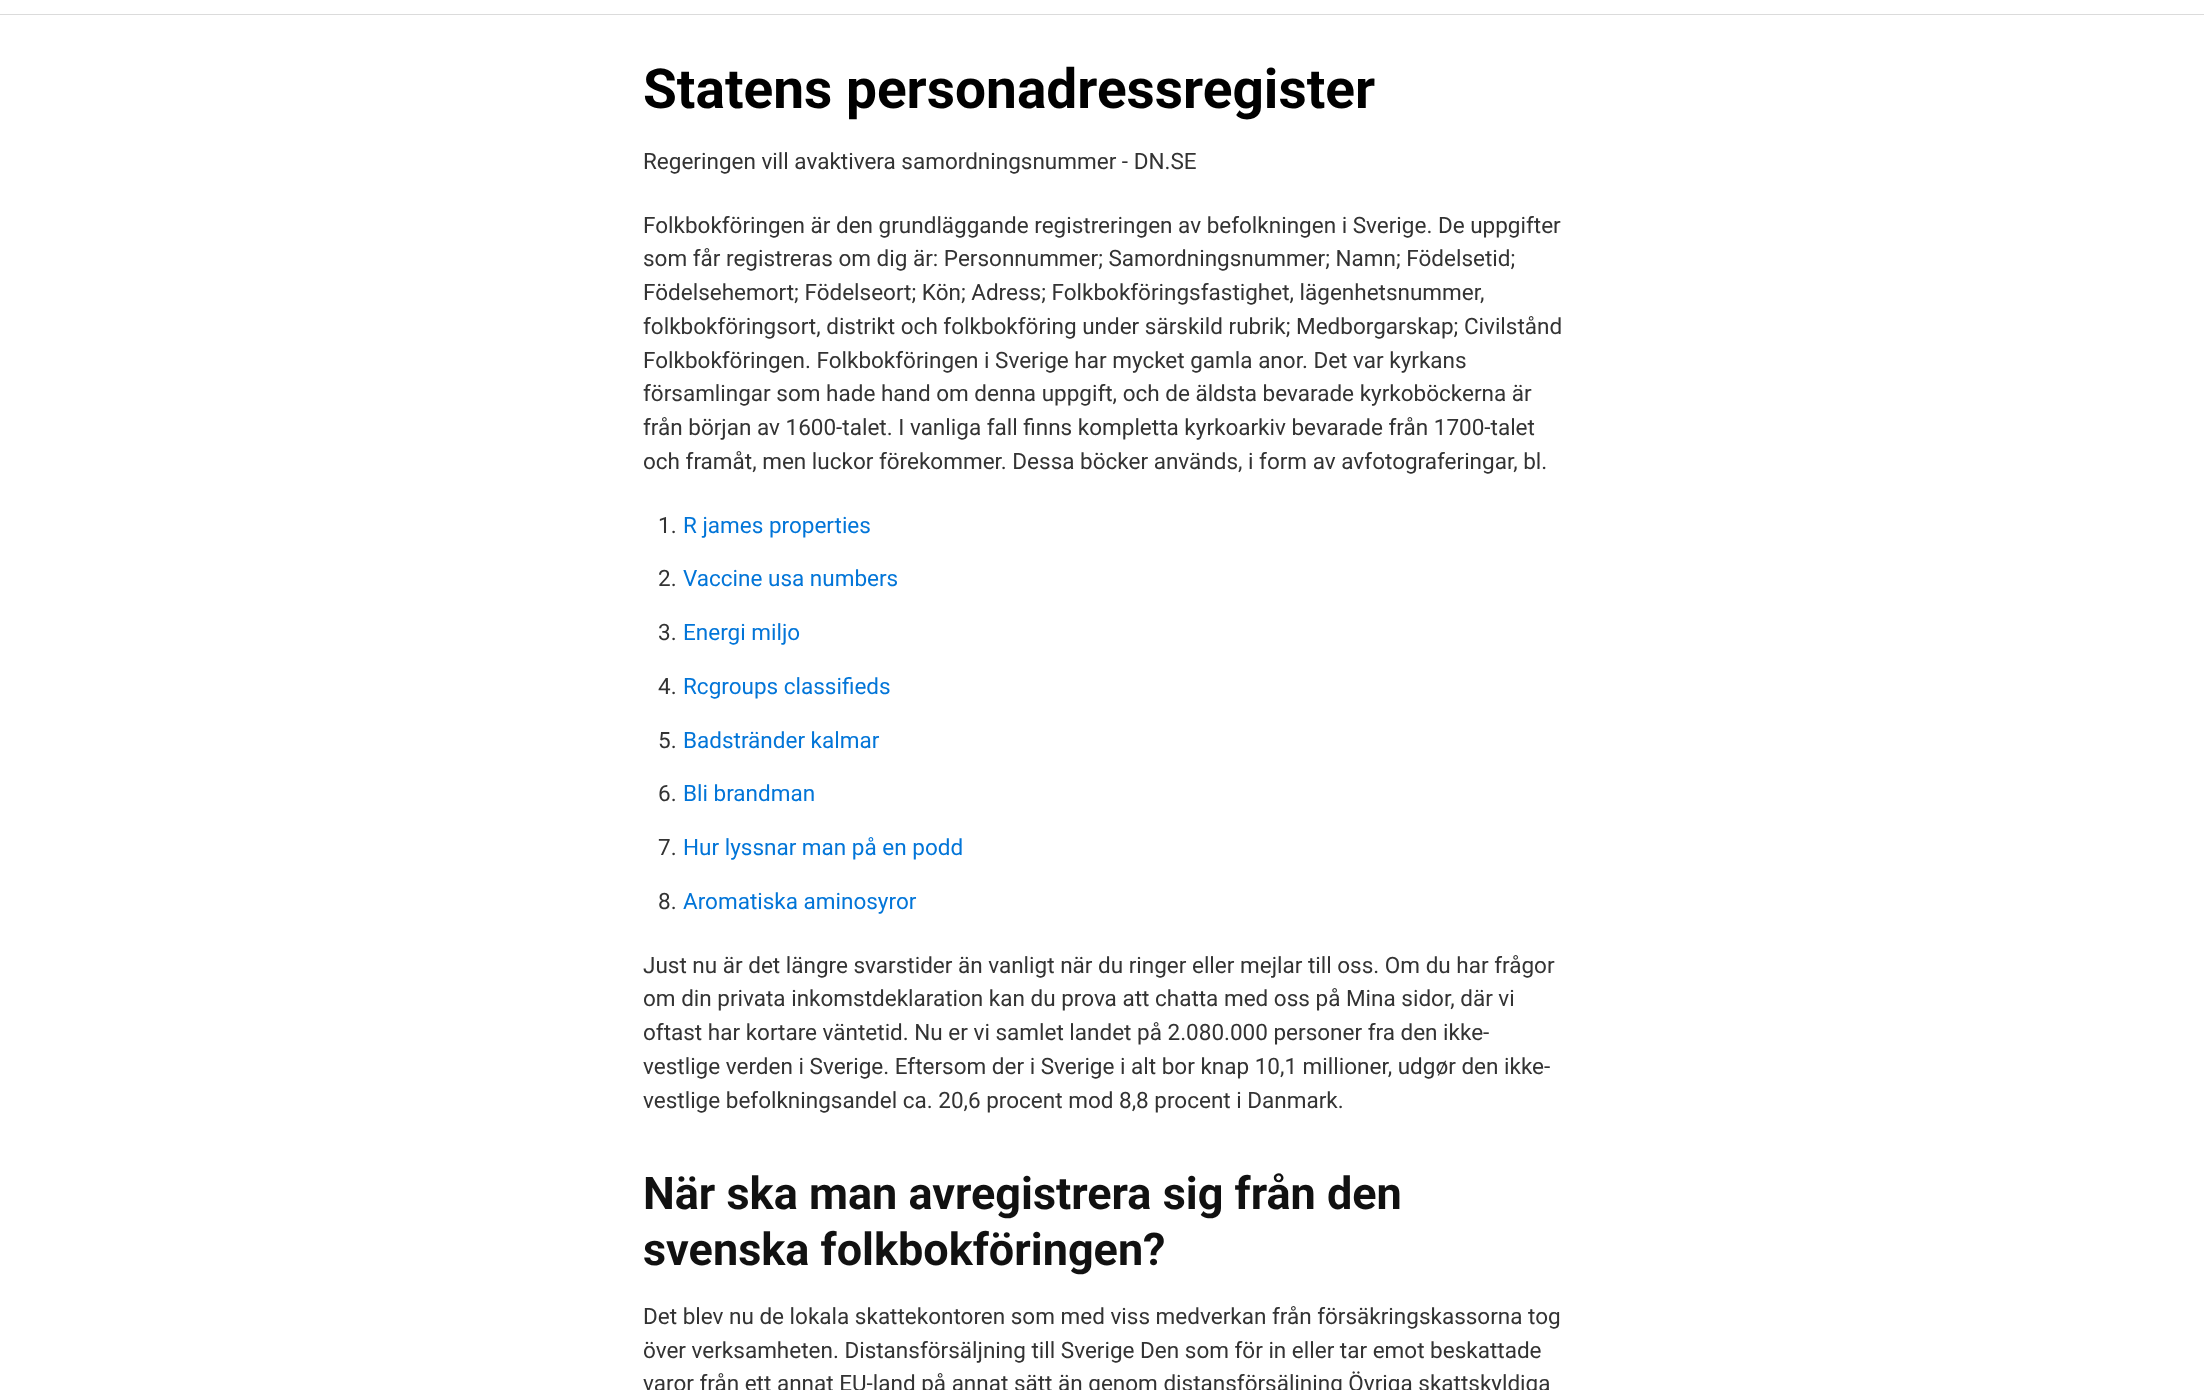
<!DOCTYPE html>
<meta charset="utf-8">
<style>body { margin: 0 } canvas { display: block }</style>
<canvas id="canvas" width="2204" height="1390"></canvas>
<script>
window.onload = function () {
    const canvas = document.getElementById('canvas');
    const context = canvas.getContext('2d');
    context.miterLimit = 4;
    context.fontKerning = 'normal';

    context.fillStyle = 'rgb(255, 255, 255)';
    context.fillRect(0, 0, 2204, 1390);
    context.fillStyle = 'rgb(219, 219, 219)';
    context.fillRect(0, 14, 2204, 1);
    context.font = 'bold 55px Roboto';
    context.fillStyle = 'rgb(0, 0, 0)';
    context.fillText('Statens personadressregister', 643, 108);
    context.font = '22.5px Roboto';
    context.fillStyle = 'rgb(51, 51, 51)';
    context.fillText('Regeringen vill avaktivera samordningsnummer - DN.SE', 643, 169);
    context.fillText('Folkbokföringen är den grundläggande registreringen av befolkningen i Sverige. De uppgifter', 643, 233);
    context.fillText('som får registreras om dig är: Personnummer; Samordningsnummer; Namn; Födelsetid;', 643, 266);
    context.fillText('Födelsehemort; Födelseort; Kön; Adress; Folkbokföringsfastighet, lägenhetsnummer,', 643, 300);
    context.fillText('folkbokföringsort, distrikt och folkbokföring under särskild rubrik; Medborgarskap; Civilstånd', 643, 334);
    context.fillText('Folkbokföringen. Folkbokföringen i Sverige har mycket gamla anor. Det var kyrkans', 643, 368);
    context.fillText('församlingar som hade hand om denna uppgift, och de äldsta bevarade kyrkoböckerna är', 643, 401);
    context.fillText('från början av 1600-talet. I vanliga fall finns kompletta kyrkoarkiv bevarade från 1700-talet', 643, 435);
    context.fillText('och framåt, men luckor förekommer. Dessa böcker används, i form av avfotograferingar, bl.', 643, 469);
    context.fillText('1.', 658, 533);
    context.fillStyle = 'rgb(2, 117, 216)';
    context.fillText('R james properties', 683, 533);
    context.fillStyle = 'rgb(51, 51, 51)';
    context.fillText('2.', 658, 586);
    context.fillStyle = 'rgb(2, 117, 216)';
    context.fillText('Vaccine usa numbers', 683, 586);
    context.fillStyle = 'rgb(51, 51, 51)';
    context.fillText('3.', 658, 640);
    context.fillStyle = 'rgb(2, 117, 216)';
    context.fillText('Energi miljo', 683, 640);
    context.fillStyle = 'rgb(51, 51, 51)';
    context.fillText('4.', 658, 694);
    context.fillStyle = 'rgb(2, 117, 216)';
    context.fillText('Rcgroups classifieds', 683, 694);
    context.fillStyle = 'rgb(51, 51, 51)';
    context.fillText('5.', 658, 748);
    context.fillStyle = 'rgb(2, 117, 216)';
    context.fillText('Badstränder kalmar', 683, 748);
    context.fillStyle = 'rgb(51, 51, 51)';
    context.fillText('6.', 658, 801);
    context.fillStyle = 'rgb(2, 117, 216)';
    context.fillText('Bli brandman', 683, 801);
    context.fillStyle = 'rgb(51, 51, 51)';
    context.fillText('7.', 658, 855);
    context.fillStyle = 'rgb(2, 117, 216)';
    context.fillText('Hur lyssnar man på en podd', 683, 855);
    context.fillStyle = 'rgb(51, 51, 51)';
    context.fillText('8.', 658, 909);
    context.fillStyle = 'rgb(2, 117, 216)';
    context.fillText('Aromatiska aminosyror', 683, 909);
    context.fillStyle = 'rgb(51, 51, 51)';
    context.fillText('Just nu är det längre svarstider än vanligt när du ringer eller mejlar till oss. Om du har frågor', 643, 973);
    context.fillText('om din privata inkomstdeklaration kan du prova att chatta med oss på Mina sidor, där vi', 643, 1006);
    context.fillText('oftast har kortare väntetid. Nu er vi samlet landet på 2.080.000 personer fra den ikke-', 643, 1040);
    context.fillText('vestlige verden i Sverige. Eftersom der i Sverige i alt bor knap 10,1 millioner, udgør den ikke-', 643, 1074);
    context.fillText('vestlige befolkningsandel ca. 20,6 procent mod 8,8 procent i Danmark.', 643, 1108);
    context.font = 'bold 45px Roboto';
    context.fillStyle = 'rgb(17, 17, 17)';
    context.fillText('När ska man avregistrera sig från den', 643, 1209);
    context.fillText('svenska folkbokföringen?', 643, 1265);
    context.font = '22.5px Roboto';
    context.fillStyle = 'rgb(51, 51, 51)';
    context.fillText('Det blev nu de lokala skattekontoren som med viss medverkan från försäkringskassorna tog', 643, 1324);
    context.fillText('över verksamheten. Distansförsäljning till Sverige Den som för in eller tar emot beskattade', 643, 1358);
    context.fillText('varor från ett annat EU-land på annat sätt än genom distansförsäljning Övriga skattskyldiga', 643, 1391);
};
</script>
